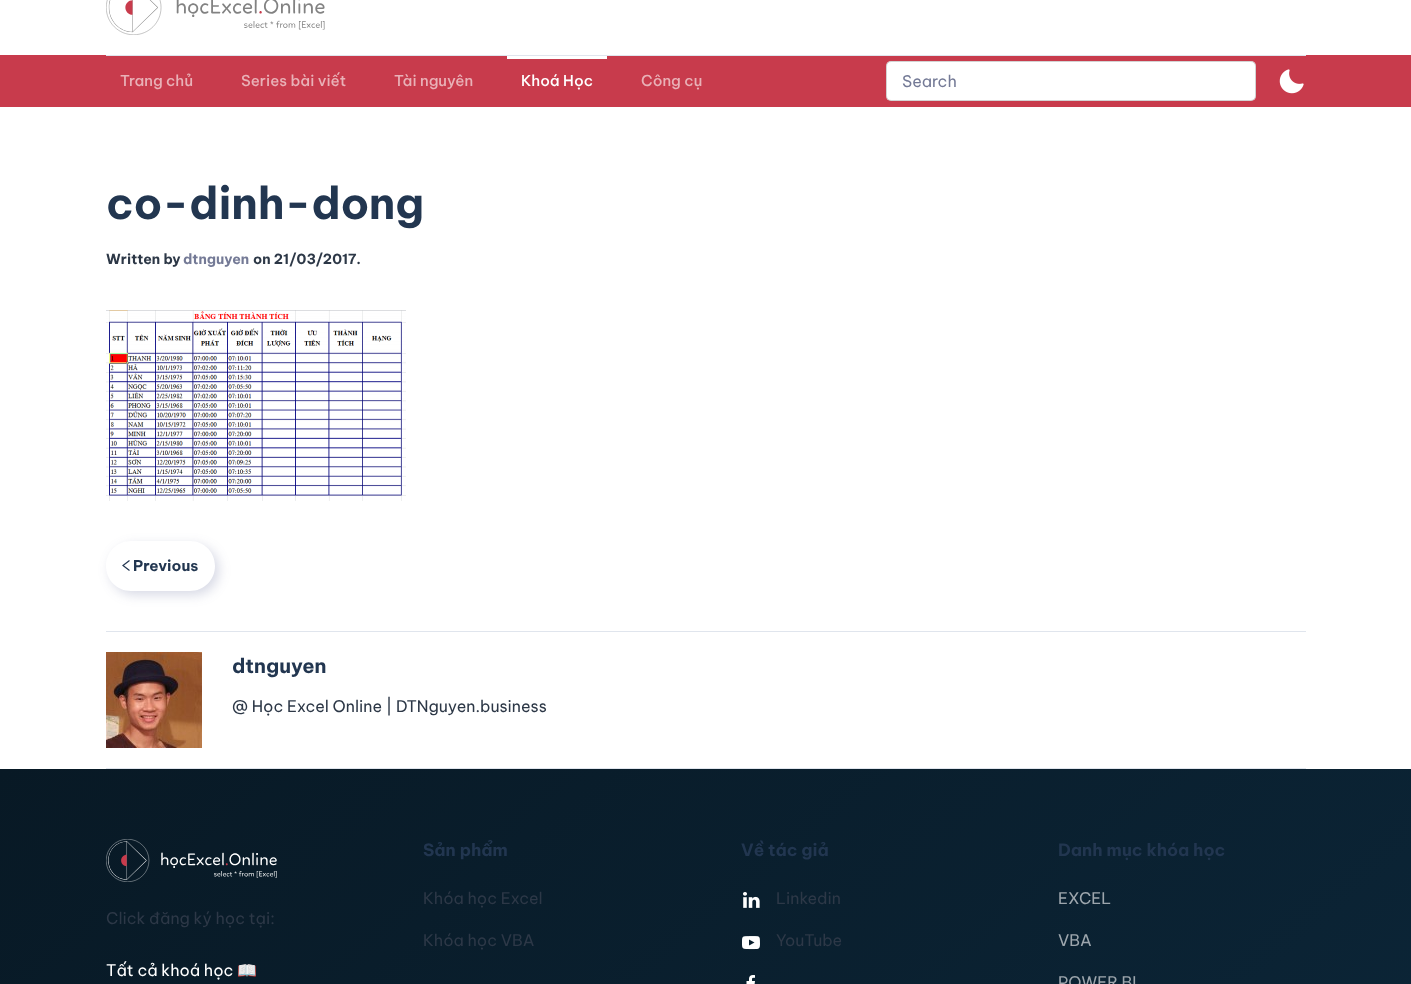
<!DOCTYPE html>
<meta charset="utf-8">
<style>body { margin: 0 } canvas { display: block }</style>
<canvas id="canvas" width="1411" height="984"></canvas>
<img id="img1" src="images/1.png" hidden>
<img id="img2" src="images/2.png" hidden>
<img id="img3" src="images/3.png" hidden>
<img id="img4" src="images/4.png" hidden>
<img id="img5" src="images/5.png" hidden>
<img id="img6" src="images/6.png" hidden>
<img id="img7" src="images/7.png" hidden>
<img id="img8" src="images/8.png" hidden>
<script>
window.onload = function () {
    const canvas = document.getElementById('canvas');
    const context = canvas.getContext('2d');
    context.miterLimit = 4;
    context.fontKerning = 'normal';
    let gradient;

    context.fillStyle = 'rgb(255, 255, 255)';
    context.fillRect(0, 0, 1411, 984);
    context.drawImage(document.getElementById('img1'), 106, 0, 219, 35);
    context.fillStyle = 'rgb(200, 59, 76)';
    context.fillRect(0, 55, 1411, 52);
    context.fillStyle = 'rgb(224, 229, 237)';
    context.fillRect(106, 55, 1200, 1);
    context.fillStyle = 'rgb(255, 255, 255)';
    context.fillRect(507, 56, 100, 3);
    context.beginPath();
    context.roundRect(886, 61, 370, 40, 5);
    context.fill();
    context.beginPath();
    context.roundRect(886.5, 61.5, 369, 39, 4.5);
    context.strokeStyle = 'rgba(33, 33, 33, 0.2)';
    context.stroke();
    context.drawImage(document.getElementById('img2'), 1279, 69, 25, 25);
    context.drawImage(document.getElementById('img3'), 106, 310, 300, 191);
    context.save();
    context.beginPath();
    context.moveTo(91, 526);
    context.lineTo(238, 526);
    context.lineTo(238, 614);
    context.lineTo(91, 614);
    context.closePath();
    context.moveTo(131, 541);
    context.lineTo(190, 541);
    context.bezierCurveTo(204, 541, 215, 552, 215, 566);
    context.bezierCurveTo(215, 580, 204, 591, 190, 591);
    context.lineTo(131, 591);
    context.bezierCurveTo(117, 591, 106, 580, 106, 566);
    context.bezierCurveTo(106, 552, 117, 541, 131, 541);
    context.closePath();
    context.clip('evenodd');
    context.fillStyle = 'rgba(57, 65, 124, 0.2)';
    context.filter = 'blur(6px)';
    context.beginPath();
    context.roundRect(110, 545, 109, 50, 25);
    context.fill();
    context.filter = 'none';
    context.restore();
    context.beginPath();
    context.moveTo(129.5, 560.5);
    context.lineTo(123, 565.5);
    context.lineTo(129.5, 570.5);
    context.strokeStyle = 'rgb(34, 54, 80)';
    context.lineWidth = 1.2;
    context.stroke();
    context.fillStyle = 'rgb(224, 229, 237)';
    context.fillRect(106, 631, 1200, 1);
    context.drawImage(document.getElementById('img4'), 106, 652, 96, 96);
    context.fillRect(106, 768, 1200, 1);
    gradient = context.createLinearGradient(1143, 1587, 268, 544);
    gradient.addColorStop(0, 'rgb(12, 39, 58)');
    gradient.addColorStop(1, 'rgb(8, 25, 37)');
    context.fillStyle = gradient;
    context.fillRect(0, 769, 1411, 215);
    context.drawImage(document.getElementById('img5'), 106, 839, 171, 43);
    context.drawImage(document.getElementById('img6'), 743, 892, 17, 16);
    context.drawImage(document.getElementById('img7'), 742, 936, 18, 14);
    context.drawImage(document.getElementById('img8'), 746, 975, 9, 9);
    context.font = '500 15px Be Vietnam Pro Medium';
    context.fillStyle = 'rgb(233, 177, 183)';
    context.fillText('Trang chủ', 120, 86);
    context.fillText('Series bài viết', 241, 86);
    context.fillText('Tài nguyên', 394, 86);
    context.fillStyle = 'rgb(255, 255, 255)';
    context.fillText('Khoá Học', 521, 86);
    context.fillStyle = 'rgb(233, 177, 183)';
    context.fillText('Công cụ', 641, 86);
    context.font = '16px Be Vietnam Pro';
    context.fillStyle = 'rgb(116, 122, 150)';
    context.fillText('Search', 902, 87);
    context.font = 'bold 44px Be Vietnam Pro';
    context.fillStyle = 'rgb(34, 54, 80)';
    context.fillText('co-dinh-dong', 106, 219);
    context.font = 'bold 14px Be Vietnam Pro';
    context.fillStyle = 'rgb(45, 56, 71)';
    context.fillText('Written by', 106, 264);
    context.fillStyle = 'rgb(116, 122, 150)';
    context.fillText('dtnguyen', 183, 264);
    context.fillStyle = 'rgb(45, 56, 71)';
    context.fillText('on 21/03/2017.', 253, 264);
    context.font = 'bold 15px Be Vietnam Pro';
    context.fillStyle = 'rgb(34, 54, 80)';
    context.fillText('Previous', 133, 571);
    context.font = 'bold 20px Be Vietnam Pro';
    context.fillText('dtnguyen', 232, 673);
    context.font = '16px Be Vietnam Pro';
    context.fillStyle = 'rgb(45, 56, 71)';
    context.fillText('@ Học Excel Online | DTNguyen.business', 232, 712);
    context.fillText('Click đăng ký học tại:', 106, 924);
    context.fillStyle = 'rgb(255, 255, 255)';
    context.fillText('Tất cả khoá học', 106, 976);
    context.font = '16px Noto Color Emoji';
    context.fillText('📖', 237, 976);
    context.font = 'bold 17px Be Vietnam Pro';
    context.fillStyle = 'rgb(34, 54, 80)';
    context.fillText('Sản phẩm', 423, 856);
    context.font = '16px Be Vietnam Pro';
    context.fillStyle = 'rgb(45, 56, 71)';
    context.fillText('Khóa học Excel', 423, 904);
    context.fillText('Khóa học VBA', 423, 946);
    context.font = 'bold 17px Be Vietnam Pro';
    context.fillStyle = 'rgb(34, 54, 80)';
    context.fillText('Về tác giả', 741, 856);
    context.font = '16px Be Vietnam Pro';
    context.fillStyle = 'rgb(45, 56, 71)';
    context.fillText('Linkedin', 776, 904);
    context.fillText('YouTube', 776, 946);
    context.font = 'bold 17px Be Vietnam Pro';
    context.fillStyle = 'rgb(34, 54, 80)';
    context.fillText('Danh mục khóa học', 1058, 856);
    context.font = '16px Be Vietnam Pro';
    context.fillStyle = 'rgb(157, 166, 173)';
    context.fillText('EXCEL', 1058, 904);
    context.fillText('VBA', 1058, 946);
    context.fillText('POWER BI', 1058, 988);
};
</script>
